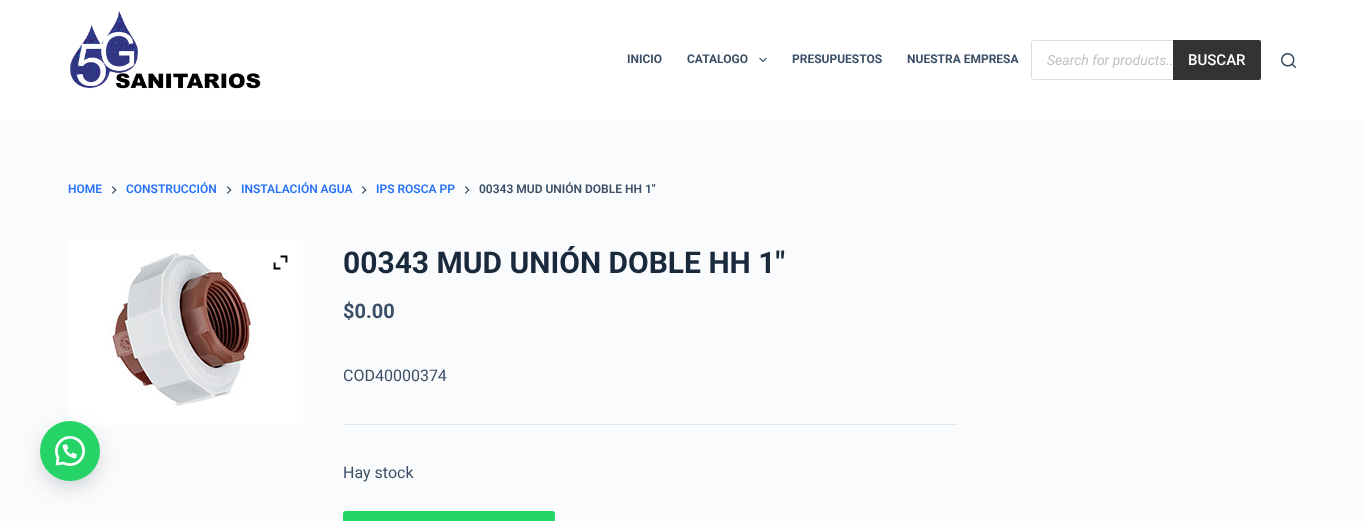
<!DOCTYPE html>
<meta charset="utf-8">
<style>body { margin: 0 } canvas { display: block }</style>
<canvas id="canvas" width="1364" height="521"></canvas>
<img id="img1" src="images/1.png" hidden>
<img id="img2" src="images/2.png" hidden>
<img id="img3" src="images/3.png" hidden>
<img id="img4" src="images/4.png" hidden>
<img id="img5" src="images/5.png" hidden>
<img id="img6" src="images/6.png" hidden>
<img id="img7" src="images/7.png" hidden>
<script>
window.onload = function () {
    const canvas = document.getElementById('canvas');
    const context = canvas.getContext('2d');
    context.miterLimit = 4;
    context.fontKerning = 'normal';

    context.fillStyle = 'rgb(250, 251, 252)';
    context.fillRect(0, 0, 1364, 521);
    context.fillStyle = 'rgb(255, 255, 255)';
    context.fillRect(0, 0, 1364, 120);
    context.drawImage(document.getElementById('img1'), 70, 11, 191, 78);
    context.drawImage(document.getElementById('img2'), 759, 57, 8, 6);
    context.beginPath();
    context.roundRect(1031.5, 40.5, 229, 39, 2.5);
    context.strokeStyle = 'rgb(221, 221, 221)';
    context.stroke();
    context.fillStyle = 'rgb(51, 51, 51)';
    context.beginPath();
    context.roundRect(1173, 40, 88, 40, [0, 2, 2, 0]);
    context.fill();
    context.drawImage(document.getElementById('img3'), 1281, 53, 15, 15);
    context.drawImage(document.getElementById('img4'), 112, 186, 5, 8);
    context.drawImage(document.getElementById('img4'), 227, 186, 5, 8);
    context.drawImage(document.getElementById('img4'), 362, 186, 5, 8);
    context.drawImage(document.getElementById('img4'), 465, 186, 5, 8);
    context.drawImage(document.getElementById('img5'), 68, 240, 235, 185);
    context.drawImage(document.getElementById('img6'), 273, 255, 15, 15);
    context.fillStyle = 'rgb(225, 232, 237)';
    context.fillRect(343, 424, 614, 1);
    context.fillStyle = 'rgb(37, 211, 102)';
    context.beginPath();
    context.roundRect(343, 511, 212, 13, 3);
    context.fill();
    context.fillStyle = 'rgba(45, 62, 79, 0.3)';
    context.filter = 'blur(12.5px)';
    context.beginPath();
    context.roundRect(45, 434, 50, 50, 25);
    context.fill();
    context.filter = 'none';
    context.fillStyle = 'rgb(37, 211, 102)';
    context.beginPath();
    context.arc(70, 451, 30, 0, 2 * Math.PI);
    context.fill();
    context.drawImage(document.getElementById('img7'), 55, 436, 30, 30);
    context.font = 'bold 12px Roboto';
    context.fillStyle = 'rgb(58, 79, 102)';
    context.fillText('INICIO', 627, 63);
    context.fillText('CATALOGO', 687, 63);
    context.fillText('PRESUPUESTOS', 792, 63);
    context.fillText('NUESTRA EMPRESA', 907, 63);
    context.font = 'italic 14px Roboto';
    context.fillStyle = 'rgb(194, 194, 194)';
    context.fillText('Search for products..', 1047, 65);
    context.font = '500 15px Roboto';
    context.fillStyle = 'rgb(255, 255, 255)';
    context.fillText('BUSCAR', 1188, 65);
    context.font = '600 12px Roboto';
    context.fillStyle = 'rgb(40, 114, 250)';
    context.fillText('HOME', 68, 193);
    context.fillText('CONSTRUCCIÓN', 126, 193);
    context.fillText('INSTALACIÓN AGUA', 241, 193);
    context.fillText('IPS ROSCA PP', 376, 193);
    context.fillStyle = 'rgb(58, 79, 102)';
    context.fillText('00343 MUD UNIÓN DOBLE HH 1″', 479, 193);
    context.font = 'bold 30px Roboto';
    context.fillStyle = 'rgb(25, 42, 61)';
    context.fillText('00343 MUD UNIÓN DOBLE HH 1″', 343, 273);
    context.font = 'bold 20px Roboto';
    context.fillStyle = 'rgb(58, 79, 102)';
    context.fillText('$0.00', 343, 318);
    context.font = '16px Roboto';
    context.fillText('COD40000374', 343, 381);
    context.fillText('Hay stock', 343, 478);
};
</script>
